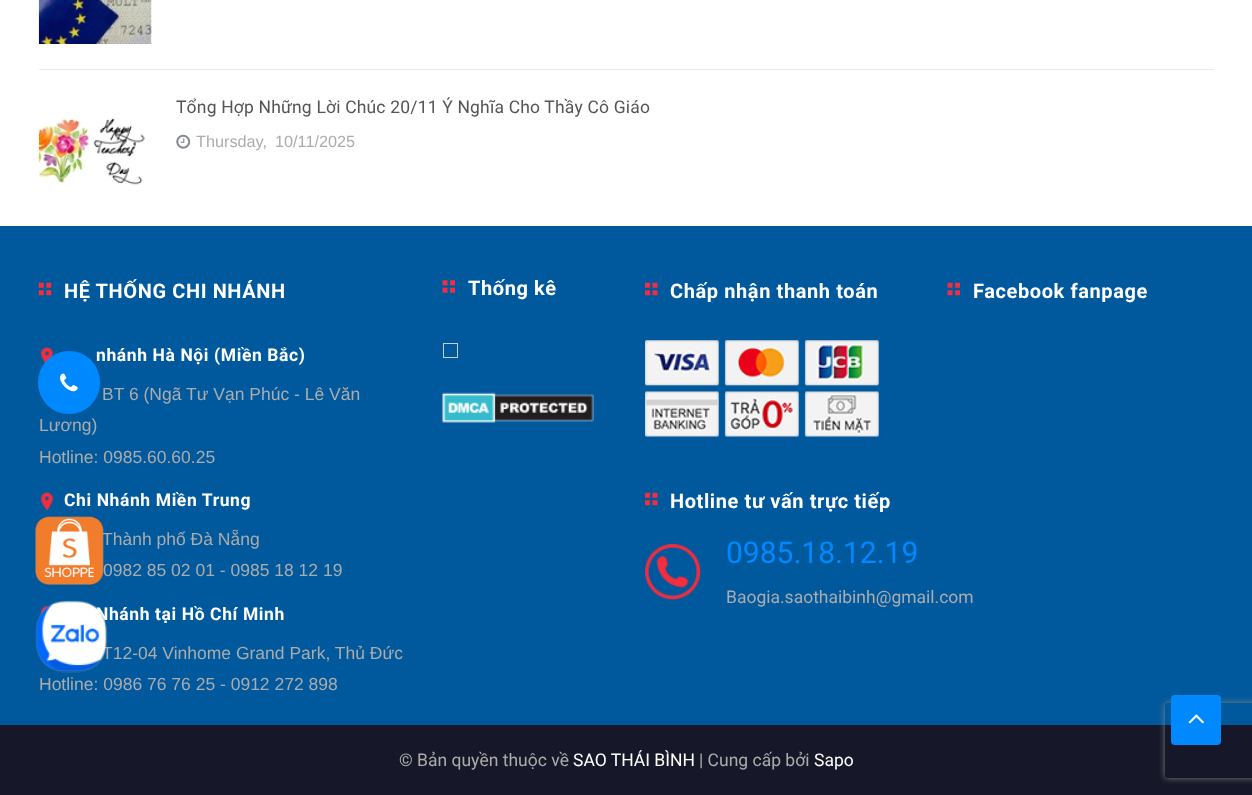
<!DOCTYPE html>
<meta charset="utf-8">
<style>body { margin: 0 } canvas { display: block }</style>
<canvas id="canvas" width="1252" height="795"></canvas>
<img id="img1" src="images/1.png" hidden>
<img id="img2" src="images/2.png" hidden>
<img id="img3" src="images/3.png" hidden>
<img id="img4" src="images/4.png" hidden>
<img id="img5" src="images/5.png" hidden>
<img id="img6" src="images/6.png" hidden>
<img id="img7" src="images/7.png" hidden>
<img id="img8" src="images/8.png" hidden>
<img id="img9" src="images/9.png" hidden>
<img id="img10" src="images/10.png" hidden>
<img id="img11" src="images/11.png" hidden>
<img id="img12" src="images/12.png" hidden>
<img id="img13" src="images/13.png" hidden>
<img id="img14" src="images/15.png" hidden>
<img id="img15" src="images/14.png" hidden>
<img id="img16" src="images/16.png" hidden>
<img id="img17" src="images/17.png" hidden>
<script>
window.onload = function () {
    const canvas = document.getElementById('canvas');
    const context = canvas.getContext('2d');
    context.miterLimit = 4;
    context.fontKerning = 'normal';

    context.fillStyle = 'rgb(255, 255, 255)';
    context.fillRect(0, 0, 1252, 795);
    context.fillStyle = 'rgb(235, 235, 235)';
    context.fillRect(39, 69, 1175, 1);
    context.drawImage(document.getElementById('img1'), 38, 0, 114, 44);
    context.drawImage(document.getElementById('img2'), 38, 117, 107, 68);
    context.drawImage(document.getElementById('img3'), 176, 134, 15, 15);
    context.fillStyle = 'rgb(0, 89, 157)';
    context.fillRect(0, 226, 1252, 499);
    context.drawImage(document.getElementById('img4'), 38, 282, 14, 14);
    context.drawImage(document.getElementById('img5'), 40, 347, 14, 17);
    context.drawImage(document.getElementById('img6'), 40, 492, 14, 19);
    context.drawImage(document.getElementById('img7'), 40, 606, 11, 11);
    context.drawImage(document.getElementById('img8'), 442, 280, 13, 13);
    context.strokeStyle = 'rgb(204, 204, 204)';
    context.strokeRect(443.5, 343.5, 14, 14);
    context.drawImage(document.getElementById('img9'), 442, 392, 152, 31);
    context.drawImage(document.getElementById('img10'), 645, 282, 13, 14);
    context.drawImage(document.getElementById('img11'), 645, 340, 234, 97);
    context.drawImage(document.getElementById('img10'), 645, 492, 13, 14);
    context.drawImage(document.getElementById('img12'), 645, 544, 56, 56);
    context.drawImage(document.getElementById('img13'), 947, 282, 13, 14);
    context.fillStyle = 'rgb(22, 24, 41)';
    context.fillRect(0, 725, 1252, 70);
    context.save();
    context.beginPath();
    context.moveTo(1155, 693);
    context.lineTo(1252, 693);
    context.lineTo(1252, 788);
    context.lineTo(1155, 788);
    context.closePath();
    context.moveTo(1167.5, 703);
    context.lineTo(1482.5, 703);
    context.bezierCurveTo(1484, 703, 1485, 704, 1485, 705.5);
    context.lineTo(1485, 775.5);
    context.bezierCurveTo(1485, 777, 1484, 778, 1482.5, 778);
    context.lineTo(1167.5, 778);
    context.bezierCurveTo(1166, 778, 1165, 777, 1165, 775.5);
    context.lineTo(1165, 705.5);
    context.bezierCurveTo(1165, 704, 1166, 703, 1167.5, 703);
    context.closePath();
    context.clip('evenodd');
    context.fillStyle = 'rgb(128, 128, 128)';
    context.filter = 'blur(3px)';
    context.beginPath();
    context.roundRect(1165, 703, 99, 75, 2.5);
    context.fill();
    context.filter = 'none';
    context.restore();
    context.fillStyle = 'rgb(0, 137, 255)';
    context.beginPath();
    context.roundRect(1171, 695, 50, 50, 4);
    context.fill();
    context.drawImage(document.getElementById('img14'), 1188, 714, 16, 10);
    context.letterSpacing = '0.18px';
    context.font = '17.5px Roboto';
    context.fillStyle = 'rgb(87, 84, 84)';
    context.fillText('Tổng Hợp Những Lời Chúc 20/11 Ý Nghĩa Cho Thầy Cô Giáo', 176, 113);
    context.letterSpacing = '0px';
    context.font = '16.25px Liberation Sans';
    context.fillStyle = 'rgb(172, 172, 172)';
    context.fillText('Thursday,', 196, 147);
    context.fillText('10/11/2025', 275, 147);
    context.letterSpacing = '0.6px';
    context.font = 'bold 20px Roboto';
    context.fillStyle = 'rgb(255, 255, 255)';
    context.fillText('HỆ THỐNG CHI NHÁNH', 64, 298);
    context.font = 'bold 17.5px Roboto';
    context.fillText('nhánh Hà Nội (Miền Bắc)', 96, 361);
    context.letterSpacing = '0px';
    context.font = '17.5px Liberation Sans';
    context.fillStyle = 'rgb(172, 172, 172)';
    context.fillText('BT 6 (Ngã Tư Vạn Phúc - Lê Văn', 102, 400);
    context.fillText('Lương)', 39, 431);
    context.fillText('Hotline: 0985.60.60.25', 39, 463);
    context.letterSpacing = '0.6px';
    context.font = 'bold 17.5px Roboto';
    context.fillStyle = 'rgb(255, 255, 255)';
    context.fillText('Chi Nhánh Miền Trung', 64, 506);
    context.letterSpacing = '0px';
    context.font = '17.5px Liberation Sans';
    context.fillStyle = 'rgb(172, 172, 172)';
    context.fillText('Thành phố Đà Nẵng', 102, 545);
    context.fillText('0982 85 02 01 - 0985 18 12 19', 103, 576);
    context.letterSpacing = '0.6px';
    context.font = 'bold 17.5px Roboto';
    context.fillStyle = 'rgb(255, 255, 255)';
    context.fillText('Nhánh tại Hồ Chí Minh', 96, 620);
    context.letterSpacing = '0px';
    context.font = '17.5px Liberation Sans';
    context.fillStyle = 'rgb(172, 172, 172)';
    context.fillText('T12-04 Vinhome Grand Park, Thủ Đức', 102, 659);
    context.fillText('Hotline: 0986 76 76 25 - 0912 272 898', 39, 690);
    context.letterSpacing = '0.6px';
    context.font = 'bold 20px Roboto';
    context.fillStyle = 'rgb(255, 255, 255)';
    context.fillText('Thống kê', 468, 295);
    context.fillText('Chấp nhận thanh toán', 670, 298);
    context.fillText('Hotline tư vấn trực tiếp', 670, 508);
    context.letterSpacing = '0px';
    context.font = '30px Roboto';
    context.fillStyle = 'rgb(0, 137, 255)';
    context.fillText('0985.18.12.19', 726, 563);
    context.font = '17.5px Roboto';
    context.fillStyle = 'rgb(172, 172, 172)';
    context.fillText('Baogia.saothaibinh@gmail.com', 726, 603);
    context.letterSpacing = '0.6px';
    context.font = 'bold 20px Roboto';
    context.fillStyle = 'rgb(255, 255, 255)';
    context.fillText('Facebook fanpage', 973, 298);
    context.fillStyle = 'rgb(0, 137, 255)';
    context.beginPath();
    context.roundRect(38, 351, 62, 63, 31);
    context.fill();
    context.drawImage(document.getElementById('img15'), 60, 373, 18, 19);
    context.letterSpacing = '0px';
    context.font = '17.5px Roboto';
    context.fillStyle = 'rgb(172, 172, 172)';
    context.fillText('© Bản quyền thuộc về', 399, 766);
    context.fillStyle = 'rgb(255, 255, 255)';
    context.fillText('SAO THÁI BÌNH', 573, 766);
    context.fillStyle = 'rgb(172, 172, 172)';
    context.fillText('| Cung cấp bởi', 699, 766);
    context.fillStyle = 'rgb(255, 255, 255)';
    context.fillText('Sapo', 814, 766);
    context.drawImage(document.getElementById('img16'), 35, 516, 69, 69);
    context.drawImage(document.getElementById('img17'), 35, 600, 73, 73);
};
</script>
